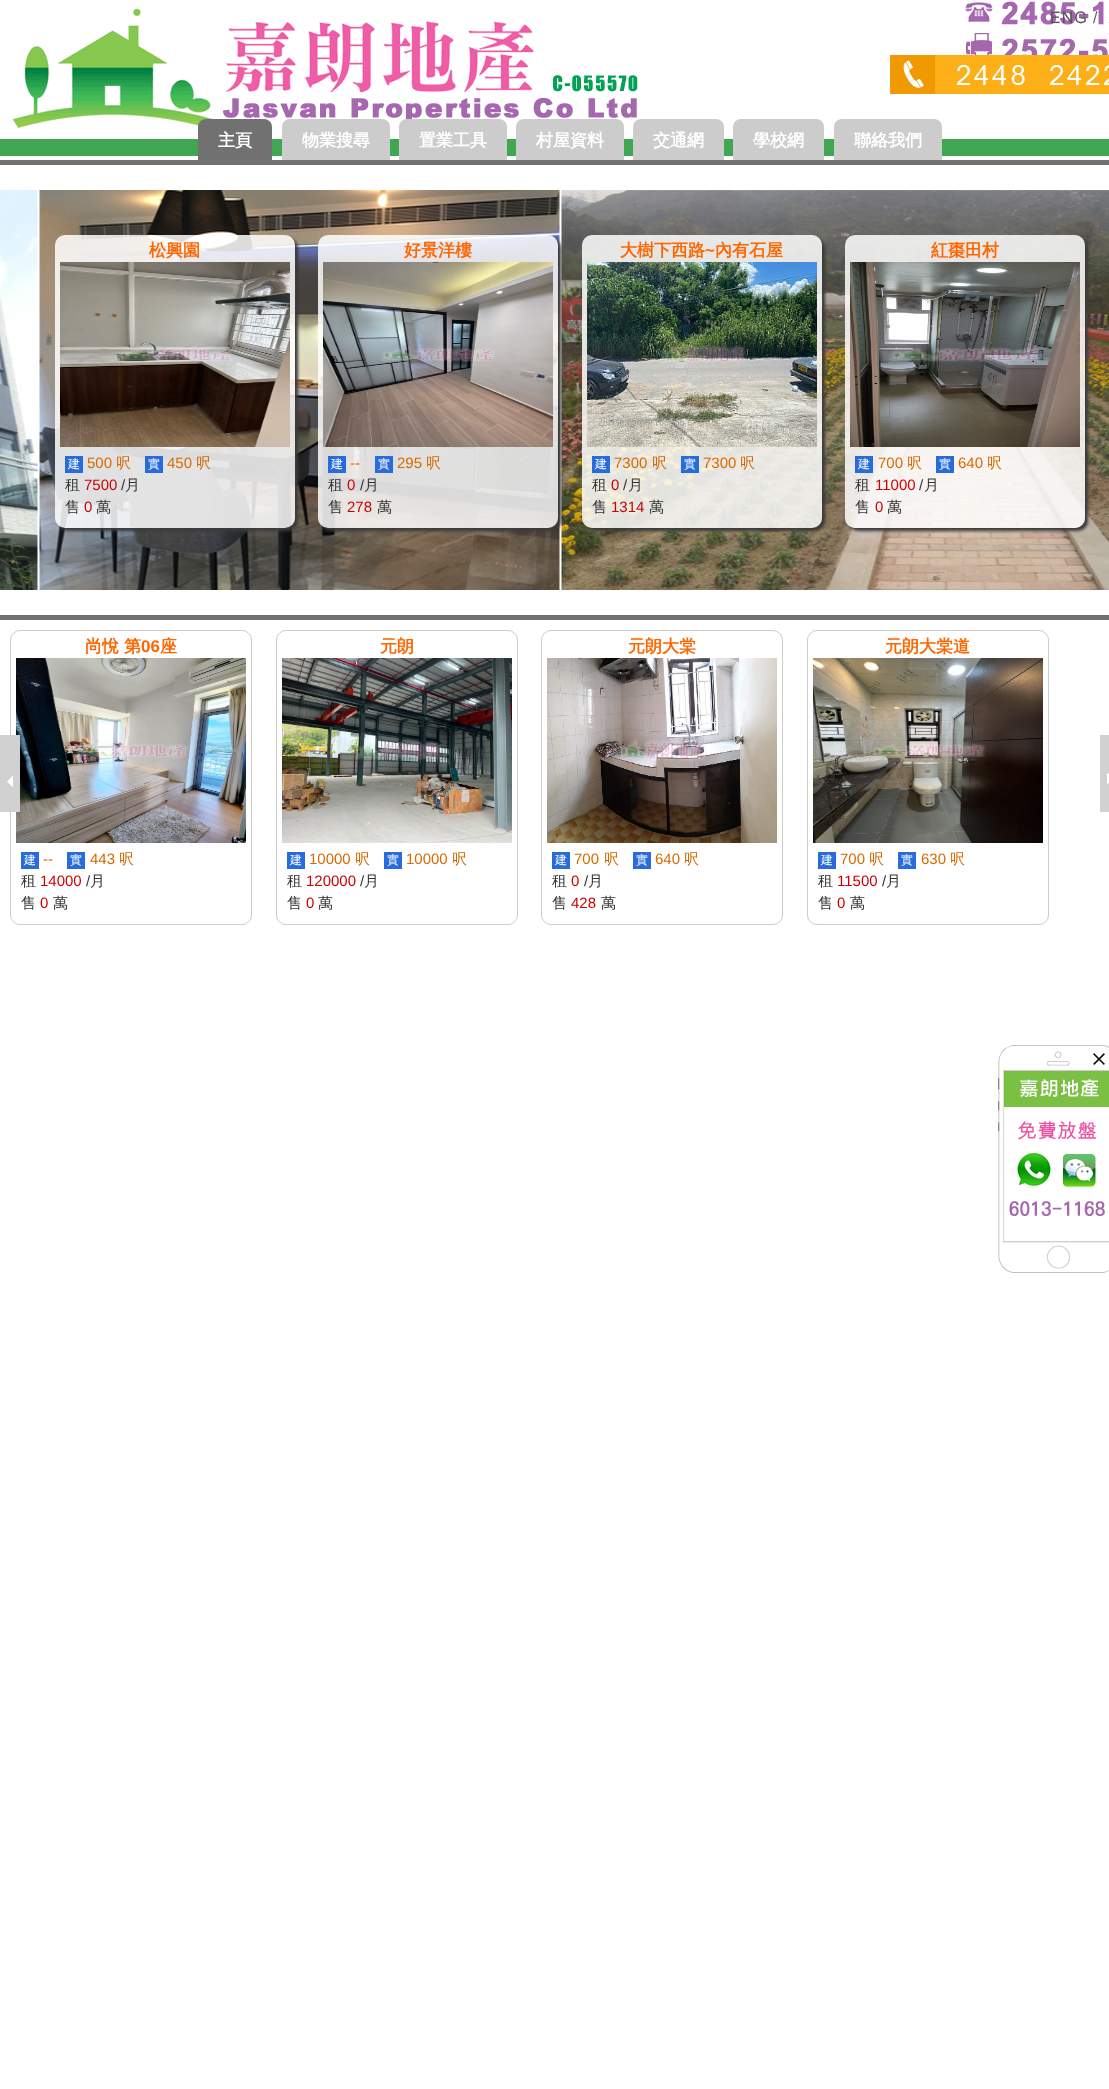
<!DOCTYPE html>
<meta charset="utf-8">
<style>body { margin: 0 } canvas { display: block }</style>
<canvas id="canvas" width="1109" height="2089"></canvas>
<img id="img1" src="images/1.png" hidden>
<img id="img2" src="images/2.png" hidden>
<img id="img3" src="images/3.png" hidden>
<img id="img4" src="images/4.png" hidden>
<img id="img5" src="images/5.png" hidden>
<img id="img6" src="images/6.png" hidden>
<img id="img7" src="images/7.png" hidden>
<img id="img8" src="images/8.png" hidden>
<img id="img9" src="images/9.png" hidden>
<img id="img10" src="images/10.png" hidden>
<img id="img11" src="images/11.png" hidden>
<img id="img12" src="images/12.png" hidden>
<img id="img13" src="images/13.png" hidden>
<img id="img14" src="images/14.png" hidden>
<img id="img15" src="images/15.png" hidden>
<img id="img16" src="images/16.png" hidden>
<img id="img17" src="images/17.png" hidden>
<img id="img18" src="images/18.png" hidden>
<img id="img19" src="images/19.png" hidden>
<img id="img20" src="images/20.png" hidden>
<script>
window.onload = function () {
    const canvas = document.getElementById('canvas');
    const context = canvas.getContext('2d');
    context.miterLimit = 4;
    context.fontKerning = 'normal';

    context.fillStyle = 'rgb(255, 255, 255)';
    context.fillRect(0, 0, 1109, 2089);
    context.drawImage(document.getElementById('img1'), 0, 1, 1109, 155);
    context.drawImage(document.getElementById('img2'), 1051, 11, 47, 13);
    context.drawImage(document.getElementById('img3'), 1108, 12, 1, 11);
    context.drawImage(document.getElementById('img4'), 890, 55, 219, 39);
    context.fillStyle = 'rgb(113, 113, 113)';
    context.beginPath();
    context.roundRect(198, 119, 74, 41, [8, 8, 0, 0]);
    context.fill();
    context.fillStyle = 'rgb(204, 204, 204)';
    context.beginPath();
    context.roundRect(282, 119, 108, 41, [8, 8, 0, 0]);
    context.fill();
    context.beginPath();
    context.roundRect(399, 119, 108, 41, [8, 8, 0, 0]);
    context.fill();
    context.beginPath();
    context.roundRect(516, 119, 108, 41, [8, 8, 0, 0]);
    context.fill();
    context.beginPath();
    context.roundRect(633, 119, 91, 41, [8, 8, 0, 0]);
    context.fill();
    context.beginPath();
    context.roundRect(733, 119, 91, 41, [8, 8, 0, 0]);
    context.fill();
    context.beginPath();
    context.roundRect(834, 119, 108, 41, [8, 8, 0, 0]);
    context.fill();
    context.fillStyle = 'rgb(113, 113, 113)';
    context.fillRect(0, 160, 1109, 5);
    context.drawImage(document.getElementById('img5'), 0, 190, 1109, 400);
    context.save();
    context.beginPath();
    context.moveTo(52, 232);
    context.lineTo(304, 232);
    context.lineTo(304, 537);
    context.lineTo(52, 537);
    context.closePath();
    context.moveTo(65, 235);
    context.lineTo(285, 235);
    context.bezierCurveTo(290.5, 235, 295, 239.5, 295, 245);
    context.lineTo(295, 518);
    context.bezierCurveTo(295, 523.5, 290.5, 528, 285, 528);
    context.lineTo(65, 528);
    context.bezierCurveTo(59.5, 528, 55, 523.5, 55, 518);
    context.lineTo(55, 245);
    context.bezierCurveTo(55, 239.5, 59.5, 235, 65, 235);
    context.closePath();
    context.clip('evenodd');
    context.fillStyle = 'rgb(59, 59, 59)';
    context.filter = 'blur(1.5px)';
    context.beginPath();
    context.roundRect(58, 238, 240, 293, 10);
    context.fill();
    context.filter = 'none';
    context.restore();
    context.drawImage(document.getElementById('img6'), 55, 235, 240, 293);
    context.drawImage(document.getElementById('img7'), 60, 262, 230, 185);
    context.fillStyle = 'rgb(40, 108, 219)';
    context.fillRect(65, 456, 18, 17);
    context.fillRect(145, 456, 18, 17);
    context.save();
    context.beginPath();
    context.moveTo(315, 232);
    context.lineTo(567, 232);
    context.lineTo(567, 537);
    context.lineTo(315, 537);
    context.closePath();
    context.moveTo(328, 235);
    context.lineTo(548, 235);
    context.bezierCurveTo(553.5, 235, 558, 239.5, 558, 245);
    context.lineTo(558, 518);
    context.bezierCurveTo(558, 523.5, 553.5, 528, 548, 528);
    context.lineTo(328, 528);
    context.bezierCurveTo(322.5, 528, 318, 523.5, 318, 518);
    context.lineTo(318, 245);
    context.bezierCurveTo(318, 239.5, 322.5, 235, 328, 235);
    context.closePath();
    context.clip('evenodd');
    context.fillStyle = 'rgb(59, 59, 59)';
    context.filter = 'blur(1.5px)';
    context.beginPath();
    context.roundRect(321, 238, 240, 293, 10);
    context.fill();
    context.filter = 'none';
    context.restore();
    context.drawImage(document.getElementById('img8'), 318, 235, 240, 293);
    context.drawImage(document.getElementById('img9'), 323, 262, 230, 185);
    context.fillRect(328, 456, 18, 17);
    context.fillRect(375, 456, 18, 17);
    context.save();
    context.beginPath();
    context.moveTo(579, 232);
    context.lineTo(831, 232);
    context.lineTo(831, 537);
    context.lineTo(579, 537);
    context.closePath();
    context.moveTo(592, 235);
    context.lineTo(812, 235);
    context.bezierCurveTo(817.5, 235, 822, 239.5, 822, 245);
    context.lineTo(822, 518);
    context.bezierCurveTo(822, 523.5, 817.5, 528, 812, 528);
    context.lineTo(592, 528);
    context.bezierCurveTo(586.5, 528, 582, 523.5, 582, 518);
    context.lineTo(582, 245);
    context.bezierCurveTo(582, 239.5, 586.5, 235, 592, 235);
    context.closePath();
    context.clip('evenodd');
    context.fillStyle = 'rgb(59, 59, 59)';
    context.filter = 'blur(1.5px)';
    context.beginPath();
    context.roundRect(585, 238, 240, 293, 10);
    context.fill();
    context.filter = 'none';
    context.restore();
    context.drawImage(document.getElementById('img10'), 582, 235, 240, 293);
    context.drawImage(document.getElementById('img11'), 587, 262, 230, 185);
    context.fillRect(592, 456, 18, 17);
    context.fillRect(681, 456, 18, 17);
    context.save();
    context.beginPath();
    context.moveTo(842, 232);
    context.lineTo(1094, 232);
    context.lineTo(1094, 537);
    context.lineTo(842, 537);
    context.closePath();
    context.moveTo(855, 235);
    context.lineTo(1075, 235);
    context.bezierCurveTo(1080.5, 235, 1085, 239.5, 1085, 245);
    context.lineTo(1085, 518);
    context.bezierCurveTo(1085, 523.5, 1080.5, 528, 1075, 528);
    context.lineTo(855, 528);
    context.bezierCurveTo(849.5, 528, 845, 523.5, 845, 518);
    context.lineTo(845, 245);
    context.bezierCurveTo(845, 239.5, 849.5, 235, 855, 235);
    context.closePath();
    context.clip('evenodd');
    context.fillStyle = 'rgb(59, 59, 59)';
    context.filter = 'blur(1.5px)';
    context.beginPath();
    context.roundRect(848, 238, 240, 293, 10);
    context.fill();
    context.filter = 'none';
    context.restore();
    context.drawImage(document.getElementById('img12'), 845, 235, 240, 293);
    context.drawImage(document.getElementById('img13'), 850, 262, 230, 185);
    context.fillRect(855, 456, 18, 17);
    context.fillRect(936, 456, 18, 17);
    context.fillStyle = 'rgb(113, 113, 113)';
    context.fillRect(0, 615, 1109, 5);
    context.beginPath();
    context.roundRect(10.5, 630.5, 241, 294, 9.5);
    context.strokeStyle = 'rgb(204, 204, 204)';
    context.stroke();
    context.drawImage(document.getElementById('img14'), 16, 658, 230, 185);
    context.fillStyle = 'rgb(40, 108, 219)';
    context.fillRect(21, 852, 18, 17);
    context.fillRect(67, 852, 18, 17);
    context.beginPath();
    context.roundRect(276.5, 630.5, 241, 294, 9.5);
    context.stroke();
    context.drawImage(document.getElementById('img15'), 282, 658, 230, 185);
    context.fillRect(287, 852, 18, 17);
    context.fillRect(384, 852, 18, 17);
    context.beginPath();
    context.roundRect(541.5, 630.5, 241, 294, 9.5);
    context.stroke();
    context.drawImage(document.getElementById('img16'), 547, 658, 230, 185);
    context.fillRect(552, 852, 18, 17);
    context.fillRect(633, 852, 18, 17);
    context.beginPath();
    context.roundRect(807.5, 630.5, 241, 294, 9.5);
    context.stroke();
    context.drawImage(document.getElementById('img17'), 813, 658, 230, 185);
    context.fillRect(818, 852, 18, 17);
    context.fillRect(898, 852, 18, 17);
    context.drawImage(document.getElementById('img18'), 0, 735, 20, 77);
    context.drawImage(document.getElementById('img19'), 1100, 735, 9, 77);
    context.drawImage(document.getElementById('img20'), 998, 1045, 111, 228);
    context.font = 'bold 17px WenQuanYi Zen Hei';
    context.fillStyle = 'rgb(255, 255, 255)';
    context.fillText('主頁', 218, 146);
    context.fillText('物業搜尋', 302, 146);
    context.fillText('置業工具', 419, 146);
    context.fillText('村屋資料', 536, 146);
    context.fillText('交通網', 653, 146);
    context.fillText('學校網', 753, 146);
    context.fillText('聯絡我們', 854, 146);
    context.fillStyle = 'rgb(255, 102, 0)';
    context.fillText('松興園', 149, 256);
    context.font = '500 12px WenQuanYi Zen Hei';
    context.fillStyle = 'rgb(255, 255, 255)';
    context.fillText('建', 68, 468);
    context.font = '15px Liberation Sans';
    context.fillStyle = 'rgb(215, 105, 0)';
    context.fillText('500', 87, 468);
    context.font = '500 15px WenQuanYi Zen Hei';
    context.fillText('呎', 116, 468);
    context.font = '500 12px WenQuanYi Zen Hei';
    context.fillStyle = 'rgb(255, 255, 255)';
    context.fillText('實', 148, 468);
    context.font = '15px Liberation Sans';
    context.fillStyle = 'rgb(215, 105, 0)';
    context.fillText('450', 167, 468);
    context.font = '500 15px WenQuanYi Zen Hei';
    context.fillText('呎', 196, 468);
    context.fillStyle = 'rgb(51, 51, 51)';
    context.fillText('租', 65, 490);
    context.font = '15px Liberation Sans';
    context.fillStyle = 'rgb(204, 0, 0)';
    context.fillText('7500', 84, 490);
    context.fillStyle = 'rgb(51, 51, 51)';
    context.fillText('/', 121, 490);
    context.font = '500 15px WenQuanYi Zen Hei';
    context.fillText('月', 125, 490);
    context.fillText('售', 65, 512);
    context.font = '15px Liberation Sans';
    context.fillStyle = 'rgb(204, 0, 0)';
    context.fillText('0', 84, 512);
    context.font = '500 15px WenQuanYi Zen Hei';
    context.fillStyle = 'rgb(51, 51, 51)';
    context.fillText('萬', 96, 512);
    context.font = 'bold 17px WenQuanYi Zen Hei';
    context.fillStyle = 'rgb(255, 102, 0)';
    context.fillText('好景洋樓', 404, 256);
    context.font = '500 12px WenQuanYi Zen Hei';
    context.fillStyle = 'rgb(255, 255, 255)';
    context.fillText('建', 331, 468);
    context.font = '15px Liberation Sans';
    context.fillStyle = 'rgb(215, 105, 0)';
    context.fillText('--', 350, 468);
    context.font = '500 12px WenQuanYi Zen Hei';
    context.fillStyle = 'rgb(255, 255, 255)';
    context.fillText('實', 378, 468);
    context.font = '15px Liberation Sans';
    context.fillStyle = 'rgb(215, 105, 0)';
    context.fillText('295', 397, 468);
    context.font = '500 15px WenQuanYi Zen Hei';
    context.fillText('呎', 426, 468);
    context.fillStyle = 'rgb(51, 51, 51)';
    context.fillText('租', 328, 490);
    context.font = '15px Liberation Sans';
    context.fillStyle = 'rgb(204, 0, 0)';
    context.fillText('0', 347, 490);
    context.fillStyle = 'rgb(51, 51, 51)';
    context.fillText('/', 360, 490);
    context.font = '500 15px WenQuanYi Zen Hei';
    context.fillText('月', 364, 490);
    context.fillText('售', 328, 512);
    context.font = '15px Liberation Sans';
    context.fillStyle = 'rgb(204, 0, 0)';
    context.fillText('278', 347, 512);
    context.font = '500 15px WenQuanYi Zen Hei';
    context.fillStyle = 'rgb(51, 51, 51)';
    context.fillText('萬', 377, 512);
    context.font = 'bold 17px WenQuanYi Zen Hei';
    context.fillStyle = 'rgb(255, 102, 0)';
    context.fillText('大樹下西路', 620, 256);
    context.font = 'bold 17px Liberation Sans';
    context.fillText('~', 705, 256);
    context.font = 'bold 17px WenQuanYi Zen Hei';
    context.fillText('內有石屋', 715, 256);
    context.font = '500 12px WenQuanYi Zen Hei';
    context.fillStyle = 'rgb(255, 255, 255)';
    context.fillText('建', 595, 468);
    context.font = '15px Liberation Sans';
    context.fillStyle = 'rgb(215, 105, 0)';
    context.fillText('7300', 614, 468);
    context.font = '500 15px WenQuanYi Zen Hei';
    context.fillText('呎', 652, 468);
    context.font = '500 12px WenQuanYi Zen Hei';
    context.fillStyle = 'rgb(255, 255, 255)';
    context.fillText('實', 684, 468);
    context.font = '15px Liberation Sans';
    context.fillStyle = 'rgb(215, 105, 0)';
    context.fillText('7300', 703, 468);
    context.font = '500 15px WenQuanYi Zen Hei';
    context.fillText('呎', 740, 468);
    context.fillStyle = 'rgb(51, 51, 51)';
    context.fillText('租', 592, 490);
    context.font = '15px Liberation Sans';
    context.fillStyle = 'rgb(204, 0, 0)';
    context.fillText('0', 611, 490);
    context.fillStyle = 'rgb(51, 51, 51)';
    context.fillText('/', 623, 490);
    context.font = '500 15px WenQuanYi Zen Hei';
    context.fillText('月', 628, 490);
    context.fillText('售', 592, 512);
    context.font = '15px Liberation Sans';
    context.fillStyle = 'rgb(204, 0, 0)';
    context.fillText('1314', 611, 512);
    context.font = '500 15px WenQuanYi Zen Hei';
    context.fillStyle = 'rgb(51, 51, 51)';
    context.fillText('萬', 649, 512);
    context.font = 'bold 17px WenQuanYi Zen Hei';
    context.fillStyle = 'rgb(255, 102, 0)';
    context.fillText('紅棗田村', 931, 256);
    context.font = '500 12px WenQuanYi Zen Hei';
    context.fillStyle = 'rgb(255, 255, 255)';
    context.fillText('建', 858, 468);
    context.font = '15px Liberation Sans';
    context.fillStyle = 'rgb(215, 105, 0)';
    context.fillText('700', 878, 468);
    context.font = '500 15px WenQuanYi Zen Hei';
    context.fillText('呎', 907, 468);
    context.font = '500 12px WenQuanYi Zen Hei';
    context.fillStyle = 'rgb(255, 255, 255)';
    context.fillText('實', 939, 468);
    context.font = '15px Liberation Sans';
    context.fillStyle = 'rgb(215, 105, 0)';
    context.fillText('640', 958, 468);
    context.font = '500 15px WenQuanYi Zen Hei';
    context.fillText('呎', 987, 468);
    context.fillStyle = 'rgb(51, 51, 51)';
    context.fillText('租', 855, 490);
    context.font = '15px Liberation Sans';
    context.fillStyle = 'rgb(204, 0, 0)';
    context.fillText('11000', 875, 490);
    context.fillStyle = 'rgb(51, 51, 51)';
    context.fillText('/', 919, 490);
    context.font = '500 15px WenQuanYi Zen Hei';
    context.fillText('月', 924, 490);
    context.fillText('售', 855, 512);
    context.font = '15px Liberation Sans';
    context.fillStyle = 'rgb(204, 0, 0)';
    context.fillText('0', 875, 512);
    context.font = '500 15px WenQuanYi Zen Hei';
    context.fillStyle = 'rgb(51, 51, 51)';
    context.fillText('萬', 887, 512);
    context.font = 'bold 17px WenQuanYi Zen Hei';
    context.fillStyle = 'rgb(255, 102, 0)';
    context.fillText('尚悅 第', 85, 652);
    context.font = 'bold 17px Liberation Sans';
    context.fillText('06', 141, 652);
    context.font = 'bold 17px WenQuanYi Zen Hei';
    context.fillText('座', 160, 652);
    context.font = '500 12px WenQuanYi Zen Hei';
    context.fillStyle = 'rgb(255, 255, 255)';
    context.fillText('建', 24, 864);
    context.font = '15px Liberation Sans';
    context.fillStyle = 'rgb(215, 105, 0)';
    context.fillText('--', 43, 864);
    context.font = '500 12px WenQuanYi Zen Hei';
    context.fillStyle = 'rgb(255, 255, 255)';
    context.fillText('實', 70, 864);
    context.font = '15px Liberation Sans';
    context.fillStyle = 'rgb(215, 105, 0)';
    context.fillText('443', 90, 864);
    context.font = '500 15px WenQuanYi Zen Hei';
    context.fillText('呎', 119, 864);
    context.fillStyle = 'rgb(51, 51, 51)';
    context.fillText('租', 21, 886);
    context.font = '15px Liberation Sans';
    context.fillStyle = 'rgb(204, 0, 0)';
    context.fillText('14000', 40, 886);
    context.fillStyle = 'rgb(51, 51, 51)';
    context.fillText('/', 86, 886);
    context.font = '500 15px WenQuanYi Zen Hei';
    context.fillText('月', 90, 886);
    context.fillText('售', 21, 908);
    context.font = '15px Liberation Sans';
    context.fillStyle = 'rgb(204, 0, 0)';
    context.fillText('0', 40, 908);
    context.font = '500 15px WenQuanYi Zen Hei';
    context.fillStyle = 'rgb(51, 51, 51)';
    context.fillText('萬', 53, 908);
    context.font = 'bold 17px WenQuanYi Zen Hei';
    context.fillStyle = 'rgb(255, 102, 0)';
    context.fillText('元朗', 380, 652);
    context.font = '500 12px WenQuanYi Zen Hei';
    context.fillStyle = 'rgb(255, 255, 255)';
    context.fillText('建', 290, 864);
    context.font = '15px Liberation Sans';
    context.fillStyle = 'rgb(215, 105, 0)';
    context.fillText('10000', 309, 864);
    context.font = '500 15px WenQuanYi Zen Hei';
    context.fillText('呎', 355, 864);
    context.font = '500 12px WenQuanYi Zen Hei';
    context.fillStyle = 'rgb(255, 255, 255)';
    context.fillText('實', 387, 864);
    context.font = '15px Liberation Sans';
    context.fillStyle = 'rgb(215, 105, 0)';
    context.fillText('10000', 406, 864);
    context.font = '500 15px WenQuanYi Zen Hei';
    context.fillText('呎', 452, 864);
    context.fillStyle = 'rgb(51, 51, 51)';
    context.fillText('租', 287, 886);
    context.font = '15px Liberation Sans';
    context.fillStyle = 'rgb(204, 0, 0)';
    context.fillText('120000', 306, 886);
    context.fillStyle = 'rgb(51, 51, 51)';
    context.fillText('/', 360, 886);
    context.font = '500 15px WenQuanYi Zen Hei';
    context.fillText('月', 364, 886);
    context.fillText('售', 287, 908);
    context.font = '15px Liberation Sans';
    context.fillStyle = 'rgb(204, 0, 0)';
    context.fillText('0', 306, 908);
    context.font = '500 15px WenQuanYi Zen Hei';
    context.fillStyle = 'rgb(51, 51, 51)';
    context.fillText('萬', 318, 908);
    context.font = 'bold 17px WenQuanYi Zen Hei';
    context.fillStyle = 'rgb(255, 102, 0)';
    context.fillText('元朗大棠', 628, 652);
    context.font = '500 12px WenQuanYi Zen Hei';
    context.fillStyle = 'rgb(255, 255, 255)';
    context.fillText('建', 555, 864);
    context.font = '15px Liberation Sans';
    context.fillStyle = 'rgb(215, 105, 0)';
    context.fillText('700', 574, 864);
    context.font = '500 15px WenQuanYi Zen Hei';
    context.fillText('呎', 604, 864);
    context.font = '500 12px WenQuanYi Zen Hei';
    context.fillStyle = 'rgb(255, 255, 255)';
    context.fillText('實', 636, 864);
    context.font = '15px Liberation Sans';
    context.fillStyle = 'rgb(215, 105, 0)';
    context.fillText('640', 655, 864);
    context.font = '500 15px WenQuanYi Zen Hei';
    context.fillText('呎', 684, 864);
    context.fillStyle = 'rgb(51, 51, 51)';
    context.fillText('租', 552, 886);
    context.font = '15px Liberation Sans';
    context.fillStyle = 'rgb(204, 0, 0)';
    context.fillText('0', 571, 886);
    context.fillStyle = 'rgb(51, 51, 51)';
    context.fillText('/', 584, 886);
    context.font = '500 15px WenQuanYi Zen Hei';
    context.fillText('月', 588, 886);
    context.fillText('售', 552, 908);
    context.font = '15px Liberation Sans';
    context.fillStyle = 'rgb(204, 0, 0)';
    context.fillText('428', 571, 908);
    context.font = '500 15px WenQuanYi Zen Hei';
    context.fillStyle = 'rgb(51, 51, 51)';
    context.fillText('萬', 601, 908);
    context.font = 'bold 17px WenQuanYi Zen Hei';
    context.fillStyle = 'rgb(255, 102, 0)';
    context.fillText('元朗大棠道', 885, 652);
    context.font = '500 12px WenQuanYi Zen Hei';
    context.fillStyle = 'rgb(255, 255, 255)';
    context.fillText('建', 821, 864);
    context.font = '15px Liberation Sans';
    context.fillStyle = 'rgb(215, 105, 0)';
    context.fillText('700', 840, 864);
    context.font = '500 15px WenQuanYi Zen Hei';
    context.fillText('呎', 869, 864);
    context.font = '500 12px WenQuanYi Zen Hei';
    context.fillStyle = 'rgb(255, 255, 255)';
    context.fillText('實', 901, 864);
    context.font = '15px Liberation Sans';
    context.fillStyle = 'rgb(215, 105, 0)';
    context.fillText('630', 921, 864);
    context.font = '500 15px WenQuanYi Zen Hei';
    context.fillText('呎', 950, 864);
    context.fillStyle = 'rgb(51, 51, 51)';
    context.fillText('租', 818, 886);
    context.font = '15px Liberation Sans';
    context.fillStyle = 'rgb(204, 0, 0)';
    context.fillText('11500', 837, 886);
    context.fillStyle = 'rgb(51, 51, 51)';
    context.fillText('/', 882, 886);
    context.font = '500 15px WenQuanYi Zen Hei';
    context.fillText('月', 886, 886);
    context.fillText('售', 818, 908);
    context.font = '15px Liberation Sans';
    context.fillStyle = 'rgb(204, 0, 0)';
    context.fillText('0', 837, 908);
    context.font = '500 15px WenQuanYi Zen Hei';
    context.fillStyle = 'rgb(51, 51, 51)';
    context.fillText('萬', 850, 908);
};
</script>
